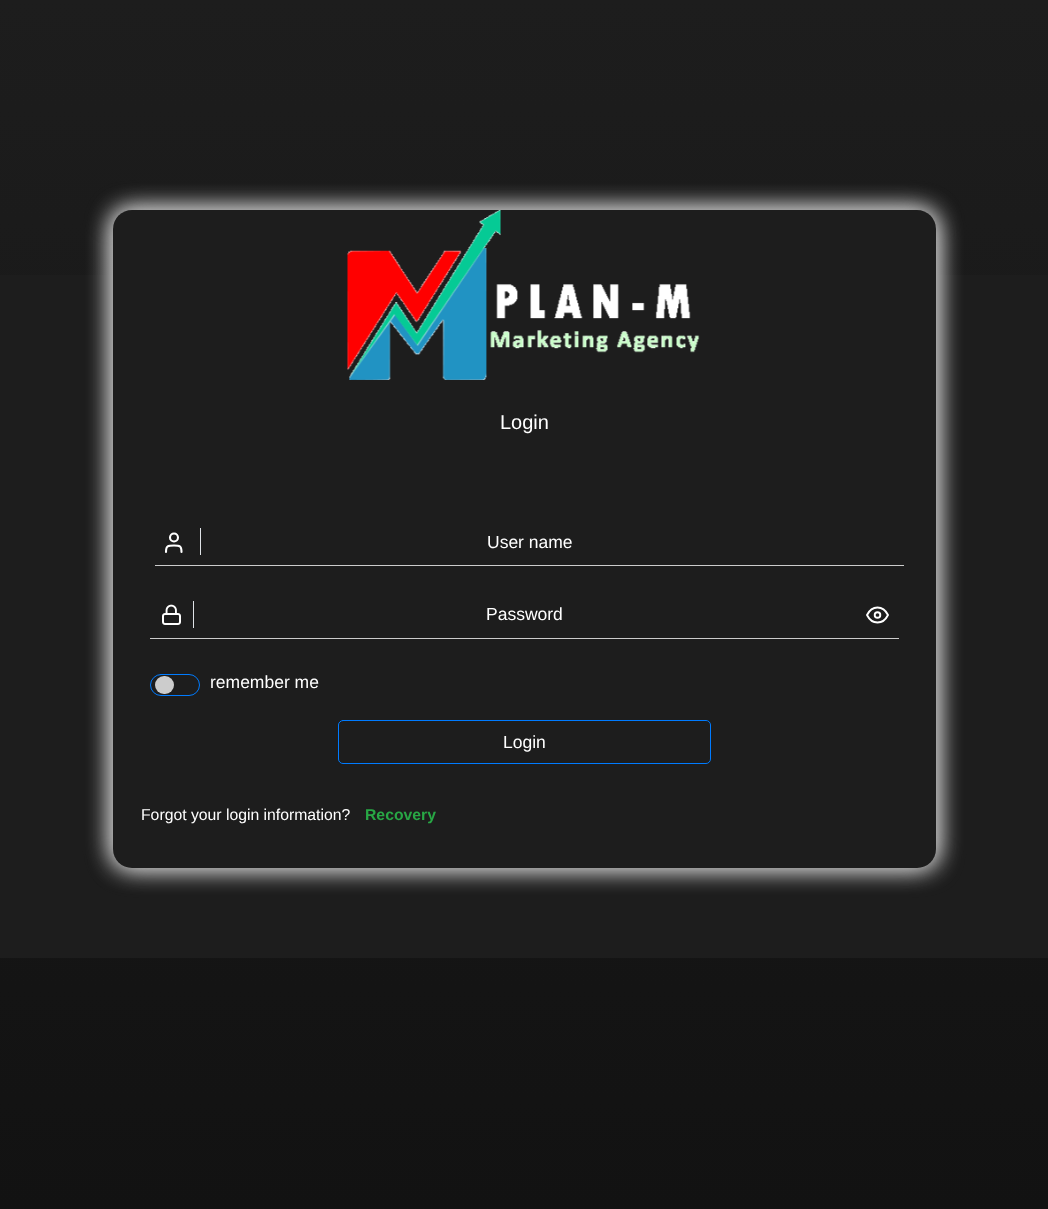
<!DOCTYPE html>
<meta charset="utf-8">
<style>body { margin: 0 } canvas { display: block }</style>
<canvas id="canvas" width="1048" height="1209"></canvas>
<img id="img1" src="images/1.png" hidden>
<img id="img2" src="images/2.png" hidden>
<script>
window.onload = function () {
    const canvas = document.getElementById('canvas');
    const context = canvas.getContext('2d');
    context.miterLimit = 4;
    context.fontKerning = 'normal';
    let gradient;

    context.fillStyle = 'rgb(255, 255, 255)';
    context.fillRect(0, 0, 1048, 1209);
    gradient = context.createLinearGradient(524, 0, 524, 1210);
    gradient.addColorStop(0, 'rgb(29, 29, 29)');
    gradient.addColorStop(1, 'rgb(18, 18, 18)');
    context.fillStyle = gradient;
    context.fillRect(0, 0, 1048, 1209);
    context.fillStyle = 'rgb(29, 29, 29)';
    context.fillRect(0, 275, 1048, 683);
    context.fillStyle = 'rgb(204, 204, 204)';
    context.filter = 'blur(12.5px)';
    context.beginPath();
    context.roundRect(111, 209, 824, 657, 19);
    context.fill();
    context.filter = 'none';
    context.filter = 'blur(12.5px)';
    context.beginPath();
    context.roundRect(114, 211, 824, 658, 19);
    context.fill();
    context.filter = 'none';
    context.fillStyle = 'rgb(29, 29, 29)';
    context.beginPath();
    context.roundRect(113, 210, 823, 658, 19);
    context.fill();
    context.drawImage(document.getElementById('img1'), 347, 210, 353, 170);
    context.fillStyle = 'rgb(204, 204, 204)';
    context.fillRect(155, 565, 749, 1);
    context.fillStyle = 'rgb(222, 226, 230)';
    context.fillRect(200, 528, 1, 27);
    context.beginPath();
    context.arc(174, 537.5, 4, 0, 2 * Math.PI);
    context.strokeStyle = 'rgb(255, 255, 255)';
    context.lineWidth = 2.1;
    context.stroke();
    context.beginPath();
    context.moveTo(181.5, 552);
    context.bezierCurveTo(181.5, 545.5, 179.5, 545.5, 174, 545.5);
    context.bezierCurveTo(168, 545.5, 166, 545.5, 166, 552);
    context.lineCap = 'round';
    context.lineJoin = 'round';
    context.stroke();
    context.fillStyle = 'rgb(204, 204, 204)';
    context.fillRect(150, 638, 749, 1);
    context.fillStyle = 'rgb(222, 226, 230)';
    context.fillRect(193, 601, 1, 27);
    context.drawImage(document.getElementById('img2'), 162, 604, 19, 21);
    context.beginPath();
    context.moveTo(867, 615);
    context.bezierCurveTo(872, 605, 883, 605, 888, 615);
    context.bezierCurveTo(883, 625, 872, 625, 867, 615);
    context.closePath();
    context.lineWidth = 1.9;
    context.stroke();
    context.beginPath();
    context.arc(877.5, 615, 2.8, 0, 2 * Math.PI);
    context.stroke();
    context.beginPath();
    context.roundRect(150.5, 674.5, 49, 21, 10.5);
    context.strokeStyle = 'rgb(0, 123, 255)';
    context.lineWidth = 1;
    context.lineJoin = 'miter';
    context.stroke();
    context.fillStyle = 'rgb(204, 204, 204)';
    context.beginPath();
    context.roundRect(155, 676, 19, 18, 9);
    context.fill();
    context.beginPath();
    context.roundRect(338.5, 720.5, 372, 43, 4.5);
    context.stroke();
    context.font = '20px Liberation Sans';
    context.fillStyle = 'rgb(255, 255, 255)';
    context.fillText('Login', 500, 429);
    context.font = '17.5px Liberation Sans';
    context.fillText('User name', 487, 548);
    context.fillText('Password', 486, 620);
    context.fillText('remember me', 210, 688);
    context.fillText('Login', 503, 748);
    context.font = '15.75px Liberation Sans';
    context.fillText('Forgot your login information?', 141, 820);
    context.font = 'bold 15.75px Liberation Sans';
    context.fillStyle = 'rgb(40, 167, 69)';
    context.fillText('Recovery', 365, 820);
};
</script>
